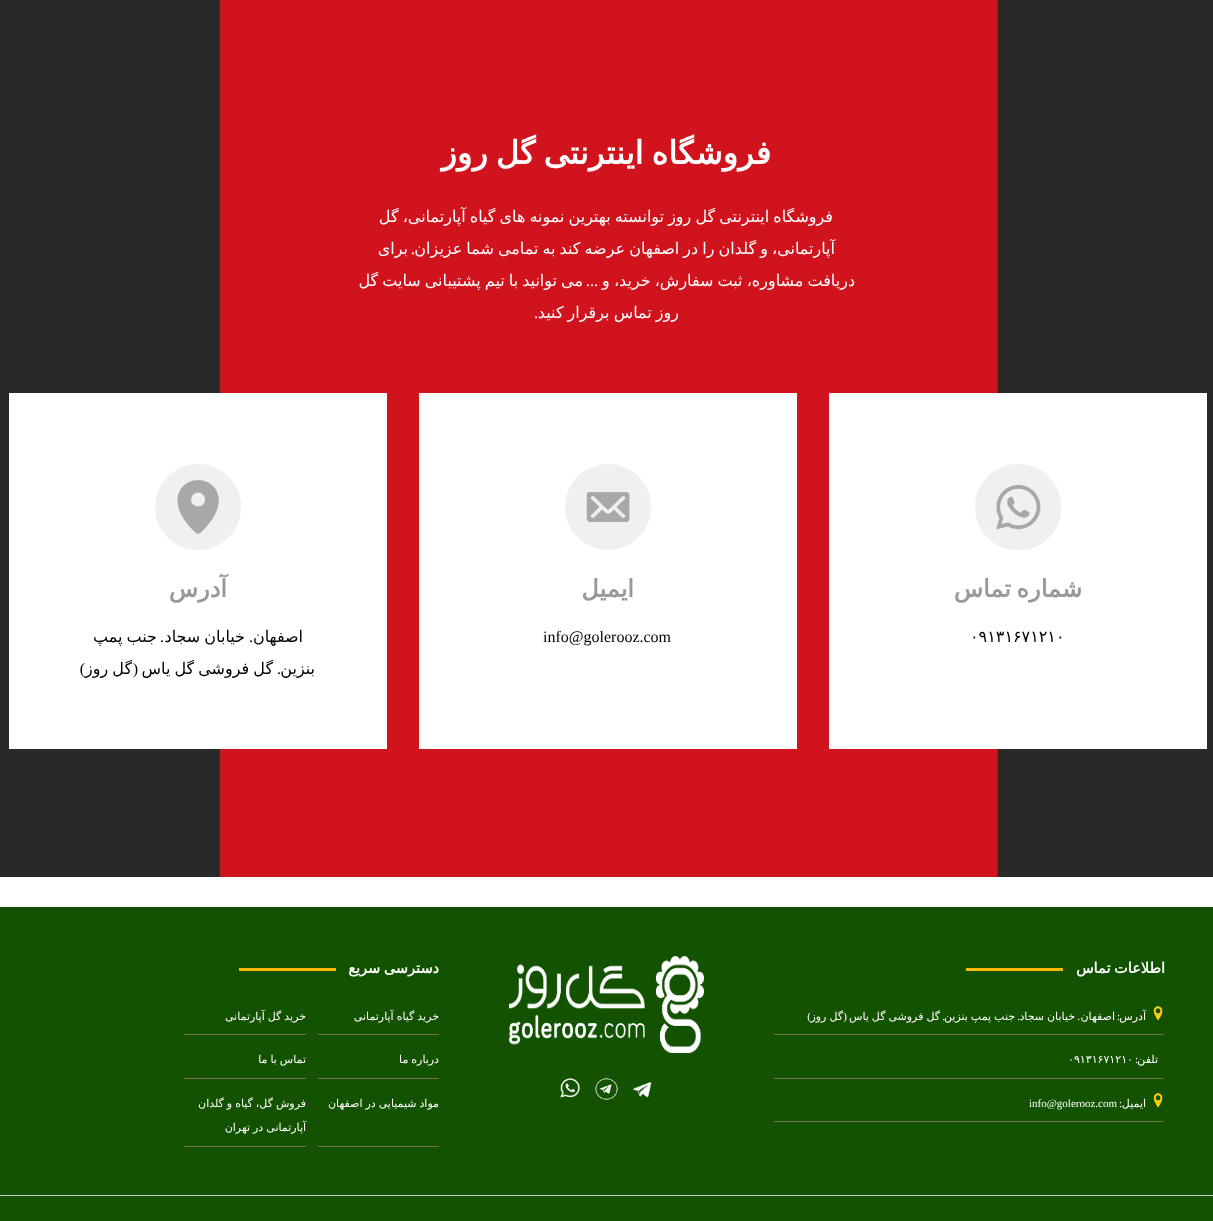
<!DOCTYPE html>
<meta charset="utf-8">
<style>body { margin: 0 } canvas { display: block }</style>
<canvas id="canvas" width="1213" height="1221"></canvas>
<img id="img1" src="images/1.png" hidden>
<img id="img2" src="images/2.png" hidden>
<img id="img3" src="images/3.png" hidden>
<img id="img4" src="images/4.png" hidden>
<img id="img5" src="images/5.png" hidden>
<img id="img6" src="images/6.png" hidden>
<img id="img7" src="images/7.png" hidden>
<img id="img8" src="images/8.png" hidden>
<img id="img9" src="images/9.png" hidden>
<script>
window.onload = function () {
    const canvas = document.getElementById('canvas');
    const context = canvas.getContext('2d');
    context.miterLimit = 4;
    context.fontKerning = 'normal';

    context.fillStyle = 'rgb(255, 255, 255)';
    context.fillRect(0, 0, 1213, 1221);
    context.drawImage(document.getElementById('img1'), 0, 0, 1213, 877);
    context.fillRect(829, 393, 378, 356);
    context.drawImage(document.getElementById('img2'), 975, 464, 86, 86);
    context.fillRect(419, 393, 378, 356);
    context.drawImage(document.getElementById('img3'), 565, 464, 86, 86);
    context.fillRect(9, 393, 378, 356);
    context.drawImage(document.getElementById('img4'), 155, 464, 86, 86);
    context.fillStyle = 'rgb(19, 82, 0)';
    context.fillRect(0, 907, 1213, 314);
    context.fillStyle = 'rgb(255, 185, 0)';
    context.fillRect(966, 968, 97, 3);
    context.fillStyle = 'rgb(120, 111, 78)';
    context.fillRect(774, 1034, 390, 1);
    context.drawImage(document.getElementById('img5'), 1153, 1006, 10, 15);
    context.fillRect(774, 1078, 390, 1);
    context.fillRect(774, 1121, 390, 1);
    context.drawImage(document.getElementById('img5'), 1153, 1093, 10, 15);
    context.drawImage(document.getElementById('img6'), 509, 956, 195, 97);
    context.drawImage(document.getElementById('img7'), 633, 1082, 19, 16);
    context.drawImage(document.getElementById('img8'), 595, 1078, 23, 22);
    context.drawImage(document.getElementById('img9'), 560, 1078, 20, 20);
    context.fillStyle = 'rgb(255, 185, 0)';
    context.fillRect(239, 968, 97, 3);
    context.fillStyle = 'rgb(120, 111, 78)';
    context.fillRect(318, 1034, 121, 1);
    context.fillRect(184, 1034, 122, 1);
    context.fillRect(318, 1078, 121, 1);
    context.fillRect(184, 1078, 122, 1);
    context.fillRect(318, 1146, 121, 1);
    context.fillRect(184, 1146, 122, 1);
    context.fillStyle = 'rgb(204, 204, 204)';
    context.fillRect(0, 1195, 1213, 1);
    context.wordSpacing = '-2px';
    context.direction = 'rtl';
    context.font = 'bold 32px DejaVu Sans';
    context.fillStyle = 'rgb(255, 255, 255)';
    context.fillText('فروشگاه اینترنتی گل روز', 771, 164);
    context.wordSpacing = '-1px';
    context.font = '16px DejaVu Sans';
    context.fillText('فروشگاه اینترنتی گل روز توانسته بهترین نمونه های گیاه آپارتمانی، گل', 833, 222);
    context.fillText('آپارتمانی، و گلدان را در اصفهان عرضه کند به تمامی شما عزیزان', 835, 254);
    context.wordSpacing = '0px';
    context.font = '16px Liberation Serif';
    context.fillText('.', 415, 254);
    context.font = '16px DejaVu Sans';
    context.fillText('برای', 408, 254);
    context.wordSpacing = '-1px';
    context.fillText('دریافت مشاوره، ثبت سفارش، خرید، و', 855, 286);
    context.fillText('می توانید با تیم پشتیبانی سایت گل', 583, 286);
    context.wordSpacing = '0px';
    context.font = '16px Liberation Serif';
    context.fillText('...', 598, 286);
    context.wordSpacing = '-1px';
    context.font = '16px DejaVu Sans';
    context.fillText('روز تماس برقرار کنید', 679, 318);
    context.wordSpacing = '0px';
    context.font = '16px Liberation Serif';
    context.fillText('.', 538, 318);
    context.wordSpacing = '-2px';
    context.font = 'bold 24px DejaVu Sans';
    context.fillStyle = 'rgb(153, 153, 153)';
    context.fillText('شماره تماس', 1082, 597);
    context.wordSpacing = '0px';
    context.direction = 'ltr';
    context.font = '16px DejaVu Sans';
    context.fillStyle = 'rgb(0, 0, 0)';
    context.fillText('۰۹۱۳۱۶۷۱۲۱۰', 970, 642);
    context.direction = 'rtl';
    context.font = 'bold 24px DejaVu Sans';
    context.fillStyle = 'rgb(153, 153, 153)';
    context.fillText('ایمیل', 634, 597);
    context.direction = 'ltr';
    context.font = '16px Liberation Serif';
    context.fillStyle = 'rgb(0, 0, 0)';
    context.fillText('info@golerooz.com', 543, 642);
    context.direction = 'rtl';
    context.font = 'bold 24px DejaVu Sans';
    context.fillStyle = 'rgb(153, 153, 153)';
    context.fillText('آدرس', 227, 597);
    context.font = '16px DejaVu Sans';
    context.fillStyle = 'rgb(0, 0, 0)';
    context.fillText('اصفهان', 303, 642);
    context.font = '16px Liberation Serif';
    context.fillText('.', 253, 642);
    context.wordSpacing = '-1px';
    context.font = '16px DejaVu Sans';
    context.fillText('خیابان سجاد', 245, 642);
    context.wordSpacing = '0px';
    context.font = '16px Liberation Serif';
    context.fillText('.', 164, 642);
    context.wordSpacing = '-1px';
    context.font = '16px DejaVu Sans';
    context.fillText('جنب پمپ', 157, 642);
    context.wordSpacing = '0px';
    context.fillText('بنزین', 315, 674);
    context.font = '16px Liberation Serif';
    context.fillText('.', 281, 674);
    context.wordSpacing = '-1px';
    context.font = '16px DejaVu Sans';
    context.fillText('گل فروشی گل یاس', 273, 674);
    context.wordSpacing = '0px';
    context.font = '16px Liberation Serif';
    context.fillText(')', 85, 674);
    context.wordSpacing = '-1px';
    context.font = '16px DejaVu Sans';
    context.fillText('گل روز', 132, 674);
    context.wordSpacing = '0px';
    context.font = '16px Liberation Serif';
    context.fillText('(', 138, 674);
    context.wordSpacing = '-1px';
    context.font = 'bold 14.5px DejaVu Sans';
    context.fillStyle = 'rgb(255, 255, 255)';
    context.fillText('اطلاعات تماس', 1165, 973);
    context.wordSpacing = '0px';
    context.font = '11px DejaVu Sans';
    context.fillText('آدرس', 1146, 1020);
    context.font = '11px Liberation Serif';
    context.fillText(':', 1120, 1020);
    context.font = '11px DejaVu Sans';
    context.fillText('اصفهان', 1115, 1020);
    context.font = '11px Liberation Serif';
    context.fillText('.', 1080, 1020);
    context.wordSpacing = '-0.5px';
    context.font = '11px DejaVu Sans';
    context.fillText('خیابان سجاد', 1075, 1020);
    context.wordSpacing = '0px';
    context.font = '11px Liberation Serif';
    context.fillText('.', 1020, 1020);
    context.wordSpacing = '-0.5px';
    context.font = '11px DejaVu Sans';
    context.fillText('جنب پمپ بنزین', 1015, 1020);
    context.wordSpacing = '0px';
    context.font = '11px Liberation Serif';
    context.fillText('.', 945, 1020);
    context.wordSpacing = '-0.5px';
    context.font = '11px DejaVu Sans';
    context.fillText('گل فروشی گل یاس', 940, 1020);
    context.wordSpacing = '0px';
    context.font = '11px Liberation Serif';
    context.fillText(')', 811, 1020);
    context.wordSpacing = '-0.5px';
    context.font = '11px DejaVu Sans';
    context.fillText('گل روز', 843, 1020);
    context.wordSpacing = '0px';
    context.font = '11px Liberation Serif';
    context.fillText('(', 847, 1020);
    context.font = '11px DejaVu Sans';
    context.fillText('تلفن', 1158, 1063);
    context.font = '11px Liberation Serif';
    context.fillText(':', 1138, 1063);
    context.direction = 'ltr';
    context.font = '11px DejaVu Sans';
    context.fillText('۰۹۱۳۱۶۷۱۲۱۰', 1068, 1063);
    context.direction = 'rtl';
    context.fillText('ایمیل', 1146, 1107);
    context.font = '11px Liberation Serif';
    context.fillText(':', 1122, 1107);
    context.direction = 'ltr';
    context.fillText('info@golerooz.com', 1029, 1107);
    context.wordSpacing = '-1px';
    context.direction = 'rtl';
    context.font = 'bold 14.5px DejaVu Sans';
    context.fillText('دسترسی سریع', 439, 973);
    context.wordSpacing = '-0.5px';
    context.font = '11px DejaVu Sans';
    context.fillText('خرید گیاه آپارتمانی', 439, 1020);
    context.fillText('خرید گل آپارتمانی', 306, 1020);
    context.fillText('درباره ما', 439, 1063);
    context.fillText('تماس با ما', 306, 1063);
    context.fillText('مواد شیمیایی در اصفهان', 439, 1107);
    context.fillText('فروش گل، گیاه و گلدان', 306, 1107);
    context.fillText('آپارتمانی در تهران', 306, 1131);
};
</script>
